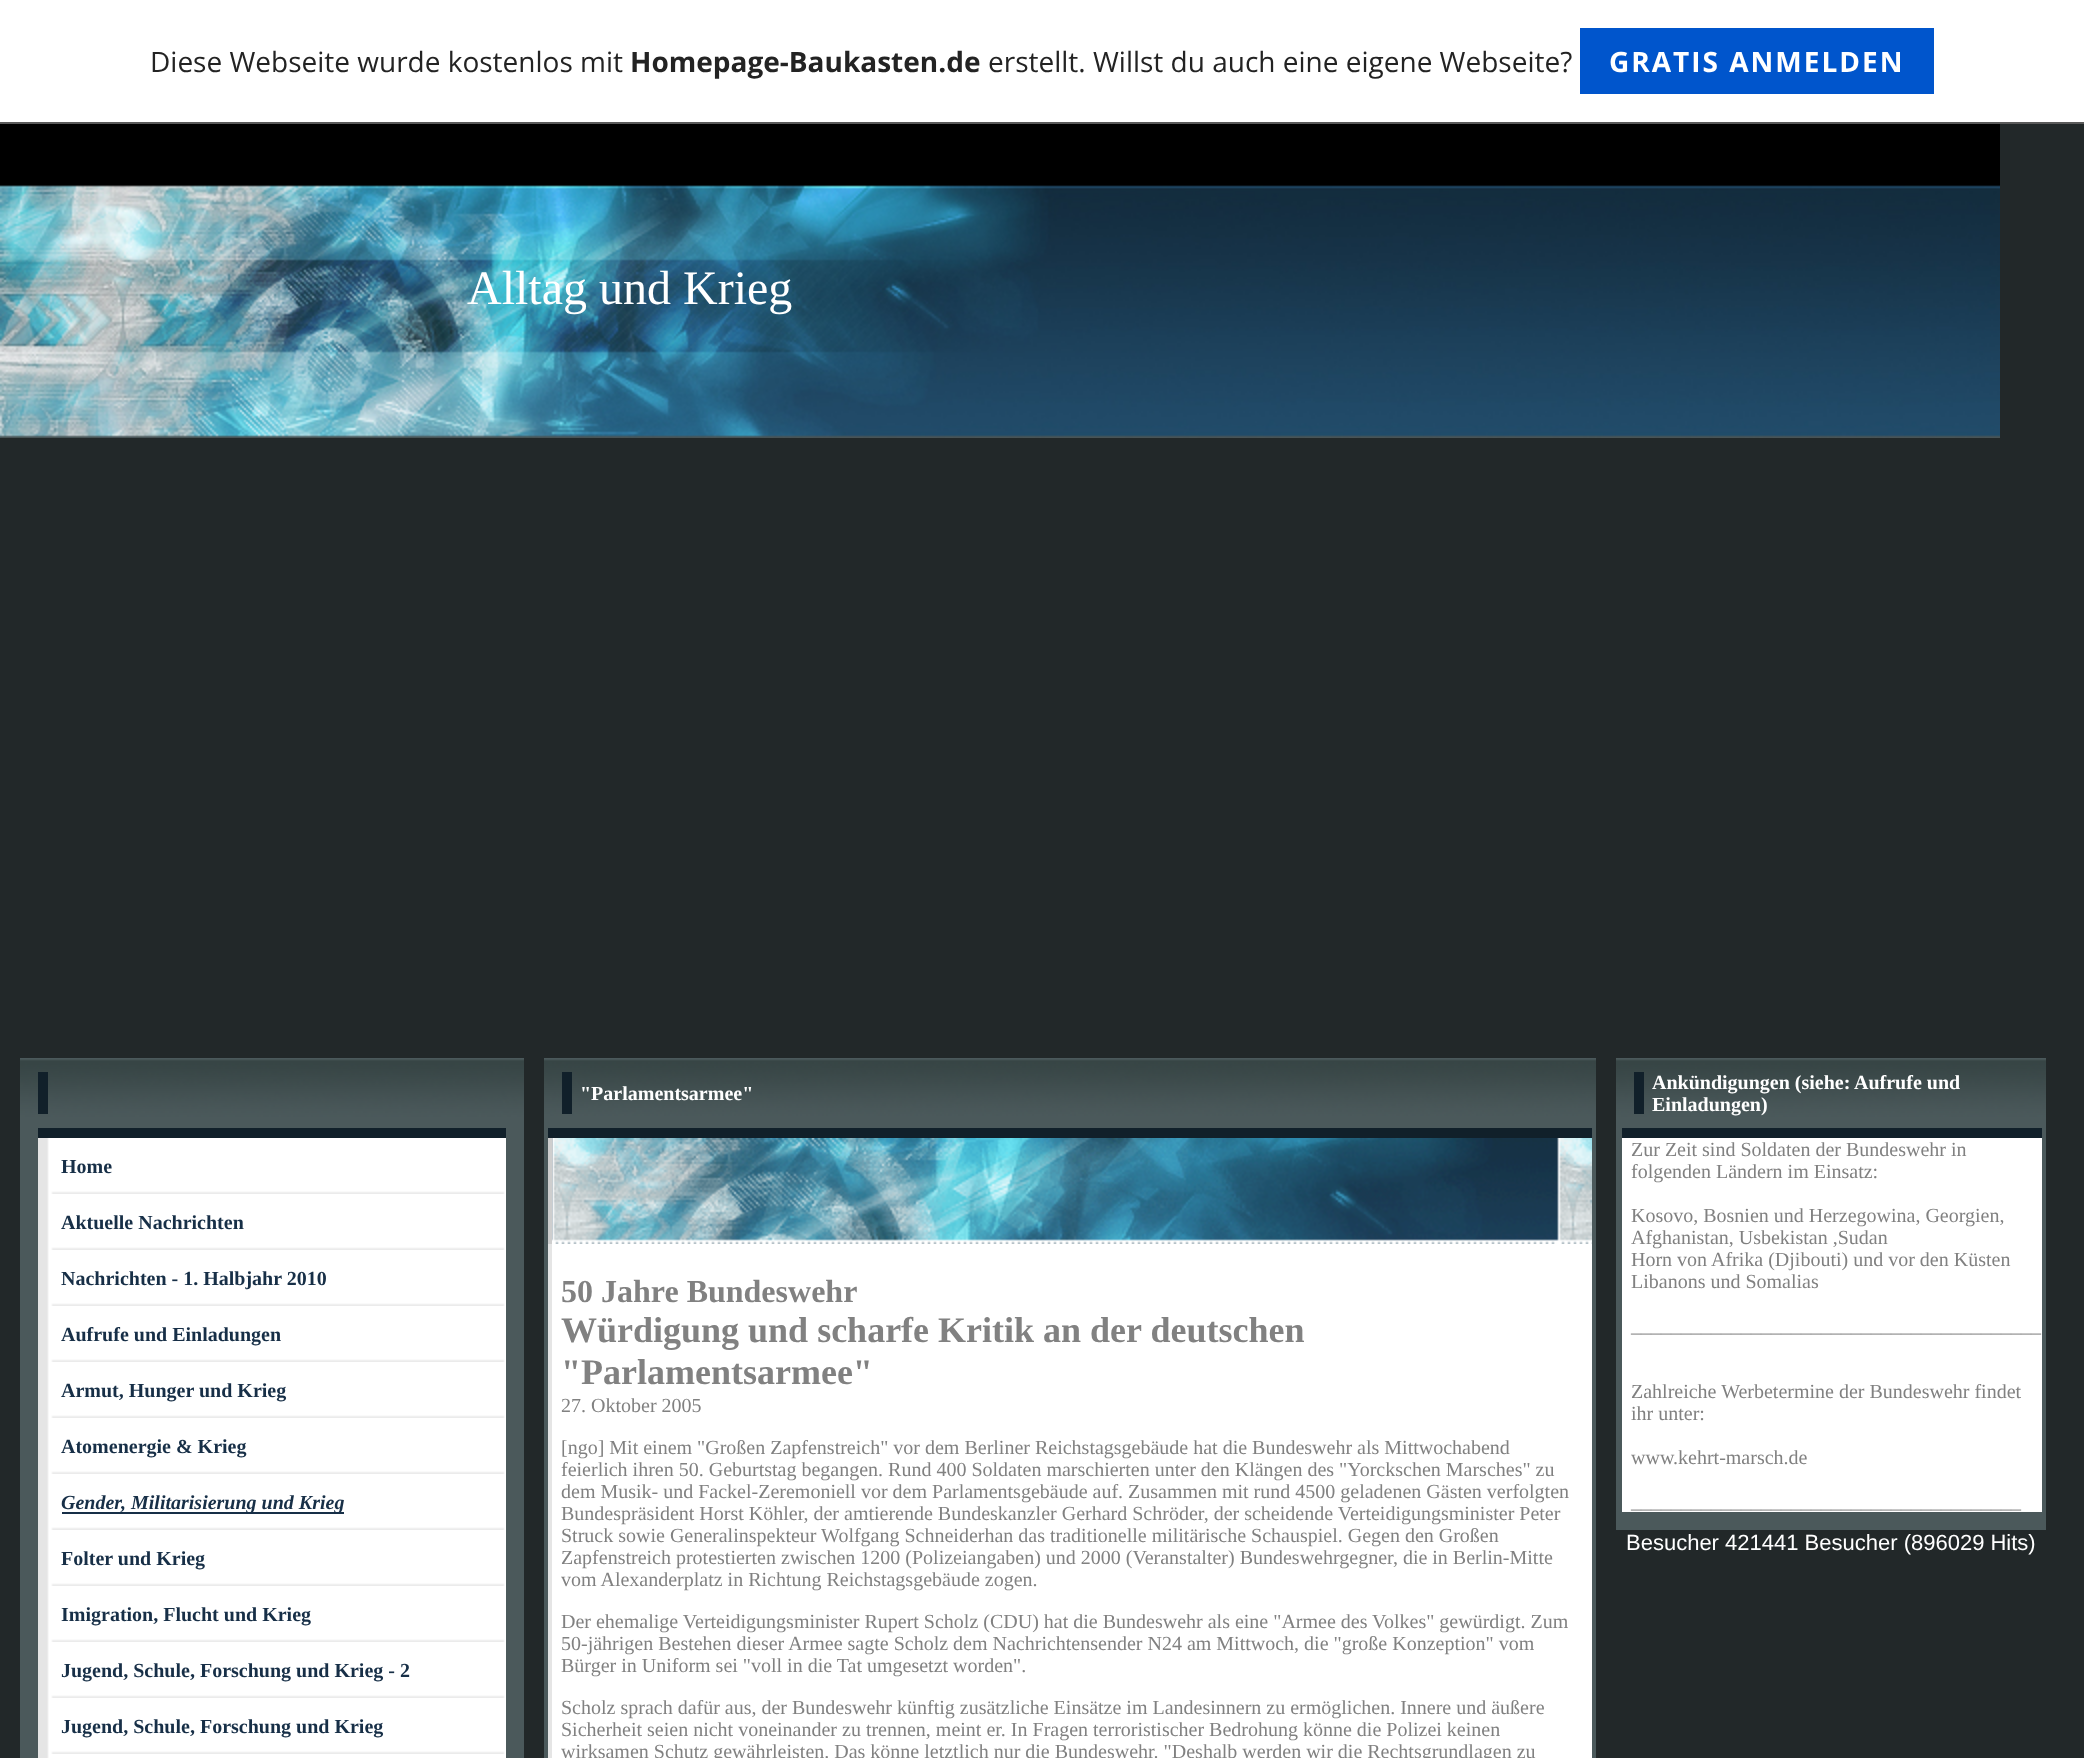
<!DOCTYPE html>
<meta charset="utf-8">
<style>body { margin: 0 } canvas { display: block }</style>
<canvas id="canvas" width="2084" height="1758"></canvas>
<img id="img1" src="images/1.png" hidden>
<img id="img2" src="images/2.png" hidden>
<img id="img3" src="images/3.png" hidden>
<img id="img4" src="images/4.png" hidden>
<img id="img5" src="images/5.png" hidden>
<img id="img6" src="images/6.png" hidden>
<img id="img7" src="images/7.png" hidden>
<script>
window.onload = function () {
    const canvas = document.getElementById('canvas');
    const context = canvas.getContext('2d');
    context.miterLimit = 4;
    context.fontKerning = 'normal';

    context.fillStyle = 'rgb(34, 40, 41)';
    context.fillRect(0, 0, 2084, 1758);
    context.fillStyle = 'rgb(255, 255, 255)';
    context.fillRect(0, 0, 2084, 122);
    context.fillStyle = 'rgb(90, 90, 90)';
    context.fillRect(0, 122, 2084, 2);
    context.fillStyle = 'rgb(0, 85, 204)';
    context.fillRect(1580, 28, 354, 66);
    context.drawImage(document.getElementById('img1'), 0, 124, 2000, 314);
    context.drawImage(document.getElementById('img2'), 20, 1058, 504, 70);
    context.fillStyle = 'rgb(17, 32, 42)';
    context.fillRect(38, 1072, 10, 42);
    context.fillStyle = 'rgb(75, 89, 91)';
    context.fillRect(20, 1128, 504, 630);
    context.fillStyle = 'rgb(17, 32, 42)';
    context.fillRect(38, 1128, 468, 10);
    context.drawImage(document.getElementById('img3'), 38, 1138, 468, 56);
    context.drawImage(document.getElementById('img3'), 38, 1194, 468, 56);
    context.drawImage(document.getElementById('img3'), 38, 1250, 468, 56);
    context.drawImage(document.getElementById('img3'), 38, 1306, 468, 56);
    context.drawImage(document.getElementById('img3'), 38, 1362, 468, 56);
    context.drawImage(document.getElementById('img3'), 38, 1418, 468, 56);
    context.drawImage(document.getElementById('img3'), 38, 1474, 468, 56);
    context.fillStyle = 'rgb(23, 47, 71)';
    context.fillRect(62, 1512, 282, 2);
    context.drawImage(document.getElementById('img3'), 38, 1530, 468, 56);
    context.drawImage(document.getElementById('img3'), 38, 1586, 468, 56);
    context.drawImage(document.getElementById('img3'), 38, 1642, 468, 56);
    context.drawImage(document.getElementById('img3'), 38, 1698, 468, 56);
    context.drawImage(document.getElementById('img4'), 38, 1754, 468, 4);
    context.drawImage(document.getElementById('img5'), 544, 1058, 1052, 70);
    context.fillStyle = 'rgb(17, 32, 42)';
    context.fillRect(562, 1072, 10, 42);
    context.fillStyle = 'rgb(75, 89, 91)';
    context.fillRect(544, 1128, 1052, 630);
    context.fillStyle = 'rgb(17, 32, 42)';
    context.fillRect(548, 1128, 1044, 10);
    context.fillStyle = 'rgb(206, 206, 206)';
    context.fillRect(548, 1138, 4, 106);
    context.drawImage(document.getElementById('img6'), 552, 1138, 1040, 106);
    context.fillStyle = 'rgb(229, 229, 229)';
    context.fillRect(548, 1244, 4, 514);
    context.fillStyle = 'rgb(255, 255, 255)';
    context.fillRect(552, 1244, 1040, 514);
    context.drawImage(document.getElementById('img7'), 1616, 1058, 430, 70);
    context.fillStyle = 'rgb(17, 32, 42)';
    context.fillRect(1634, 1072, 10, 42);
    context.fillStyle = 'rgb(75, 89, 91)';
    context.fillRect(1616, 1128, 430, 402);
    context.fillStyle = 'rgb(17, 32, 42)';
    context.fillRect(1622, 1128, 420, 10);
    context.fillStyle = 'rgb(255, 255, 255)';
    context.fillRect(1622, 1138, 420, 374);
    context.font = '28px Open Sans';
    context.fillStyle = 'rgb(35, 35, 35)';
    context.fillText('Diese Webseite wurde kostenlos mit', 150, 72);
    context.font = 'bold 28px Open Sans';
    context.fillText('Homepage-Baukasten.de', 630, 72);
    context.font = '28px Open Sans';
    context.fillText('erstellt. Willst du auch eine eigene Webseite?', 988, 72);
    context.letterSpacing = '2px';
    context.font = 'bold 28px Open Sans';
    context.fillStyle = 'rgb(255, 255, 255)';
    context.fillText('GRATIS ANMELDEN', 1609, 72);
    context.letterSpacing = '0px';
    context.font = '48px Liberation Serif';
    context.fillText('Alltag und Krieg', 467, 304);
    context.font = 'bold 20px Liberation Serif';
    context.fillStyle = 'rgb(23, 47, 71)';
    context.fillText('Home', 61, 1173);
    context.fillText('Aktuelle Nachrichten', 61, 1229);
    context.fillText('Nachrichten - 1. Halbjahr 2010', 61, 1285);
    context.fillText('Aufrufe und Einladungen', 61, 1341);
    context.fillText('Armut, Hunger und Krieg', 61, 1397);
    context.fillText('Atomenergie & Krieg', 61, 1453);
    context.font = 'italic bold 20px Liberation Serif';
    context.fillText('Gender, Militarisierung und Krieg', 61, 1509);
    context.font = 'bold 20px Liberation Serif';
    context.fillText('Folter und Krieg', 61, 1565);
    context.fillText('Imigration, Flucht und Krieg', 61, 1621);
    context.fillText('Jugend, Schule, Forschung und Krieg - 2', 61, 1677);
    context.fillText('Jugend, Schule, Forschung und Krieg', 61, 1733);
    context.fillStyle = 'rgb(255, 255, 255)';
    context.fillText('"Parlamentsarmee"', 580, 1100);
    context.font = 'bold 32px Liberation Serif';
    context.fillStyle = 'rgb(129, 129, 129)';
    context.fillText('50 Jahre Bundeswehr', 561, 1302);
    context.font = 'bold 36px Liberation Serif';
    context.fillText('Würdigung und scharfe Kritik an der deutschen', 561, 1342);
    context.fillText('"Parlamentsarmee"', 561, 1384);
    context.font = '20px Liberation Serif';
    context.fillText('27. Oktober 2005', 561, 1412);
    context.fillText('[ngo] Mit einem "Großen Zapfenstreich" vor dem Berliner Reichstagsgebäude hat die Bundeswehr als Mittwochabend', 561, 1454);
    context.fillText('feierlich ihren 50. Geburtstag begangen. Rund 400 Soldaten marschierten unter den Klängen des "Yorckschen Marsches" zu', 561, 1476);
    context.fillText('dem Musik- und Fackel-Zeremoniell vor dem Parlamentsgebäude auf. Zusammen mit rund 4500 geladenen Gästen verfolgten', 561, 1498);
    context.fillText('Bundespräsident Horst Köhler, der amtierende Bundeskanzler Gerhard Schröder, der scheidende Verteidigungsminister Peter', 561, 1520);
    context.fillText('Struck sowie Generalinspekteur Wolfgang Schneiderhan das traditionelle militärische Schauspiel. Gegen den Großen', 561, 1542);
    context.fillText('Zapfenstreich protestierten zwischen 1200 (Polizeiangaben) und 2000 (Veranstalter) Bundeswehrgegner, die in Berlin-Mitte', 561, 1564);
    context.fillText('vom Alexanderplatz in Richtung Reichstagsgebäude zogen.', 561, 1586);
    context.fillText('Der ehemalige Verteidigungsminister Rupert Scholz (CDU) hat die Bundeswehr als eine "Armee des Volkes" gewürdigt. Zum', 561, 1628);
    context.fillText('50-jährigen Bestehen dieser Armee sagte Scholz dem Nachrichtensender N24 am Mittwoch, die "große Konzeption" vom', 561, 1650);
    context.fillText('Bürger in Uniform sei "voll in die Tat umgesetzt worden".', 561, 1672);
    context.fillText('Scholz sprach dafür aus, der Bundeswehr künftig zusätzliche Einsätze im Landesinnern zu ermöglichen. Innere und äußere', 561, 1714);
    context.fillText('Sicherheit seien nicht voneinander zu trennen, meint er. In Fragen terroristischer Bedrohung könne die Polizei keinen', 561, 1736);
    context.fillText('wirksamen Schutz gewährleisten. Das könne letztlich nur die Bundeswehr. "Deshalb werden wir die Rechtsgrundlagen zu', 561, 1758);
    context.font = 'bold 20px Liberation Serif';
    context.fillStyle = 'rgb(255, 255, 255)';
    context.fillText('Ankündigungen (siehe:', 1652, 1089);
    context.fillText('Aufrufe und', 1854, 1089);
    context.fillText('Einladungen)', 1652, 1111);
    context.font = '20px Liberation Serif';
    context.fillStyle = 'rgb(129, 129, 129)';
    context.fillText('Zur Zeit sind Soldaten der Bundeswehr in', 1631, 1156);
    context.fillText('folgenden Ländern im Einsatz:', 1631, 1178);
    context.fillText('Kosovo, Bosnien und Herzegowina, Georgien,', 1631, 1222);
    context.fillText('Afghanistan, Usbekistan ,Sudan', 1631, 1244);
    context.fillText('Horn von Afrika (Djibouti) und vor den Küsten', 1631, 1266);
    context.fillText('Libanons und Somalias', 1631, 1288);
    context.fillText('_________________________________________', 1631, 1332);
    context.fillText('Zahlreiche Werbetermine der Bundeswehr findet', 1631, 1398);
    context.fillText('ihr unter:', 1631, 1420);
    context.fillText('www.kehrt-marsch.de', 1631, 1464);
    context.fillText('_______________________________________', 1631, 1508);
    context.font = '22px Liberation Sans';
    context.fillStyle = 'rgb(255, 255, 255)';
    context.fillText('Besucher 421441 Besucher (896029 Hits)', 1626, 1550);
};
</script>
